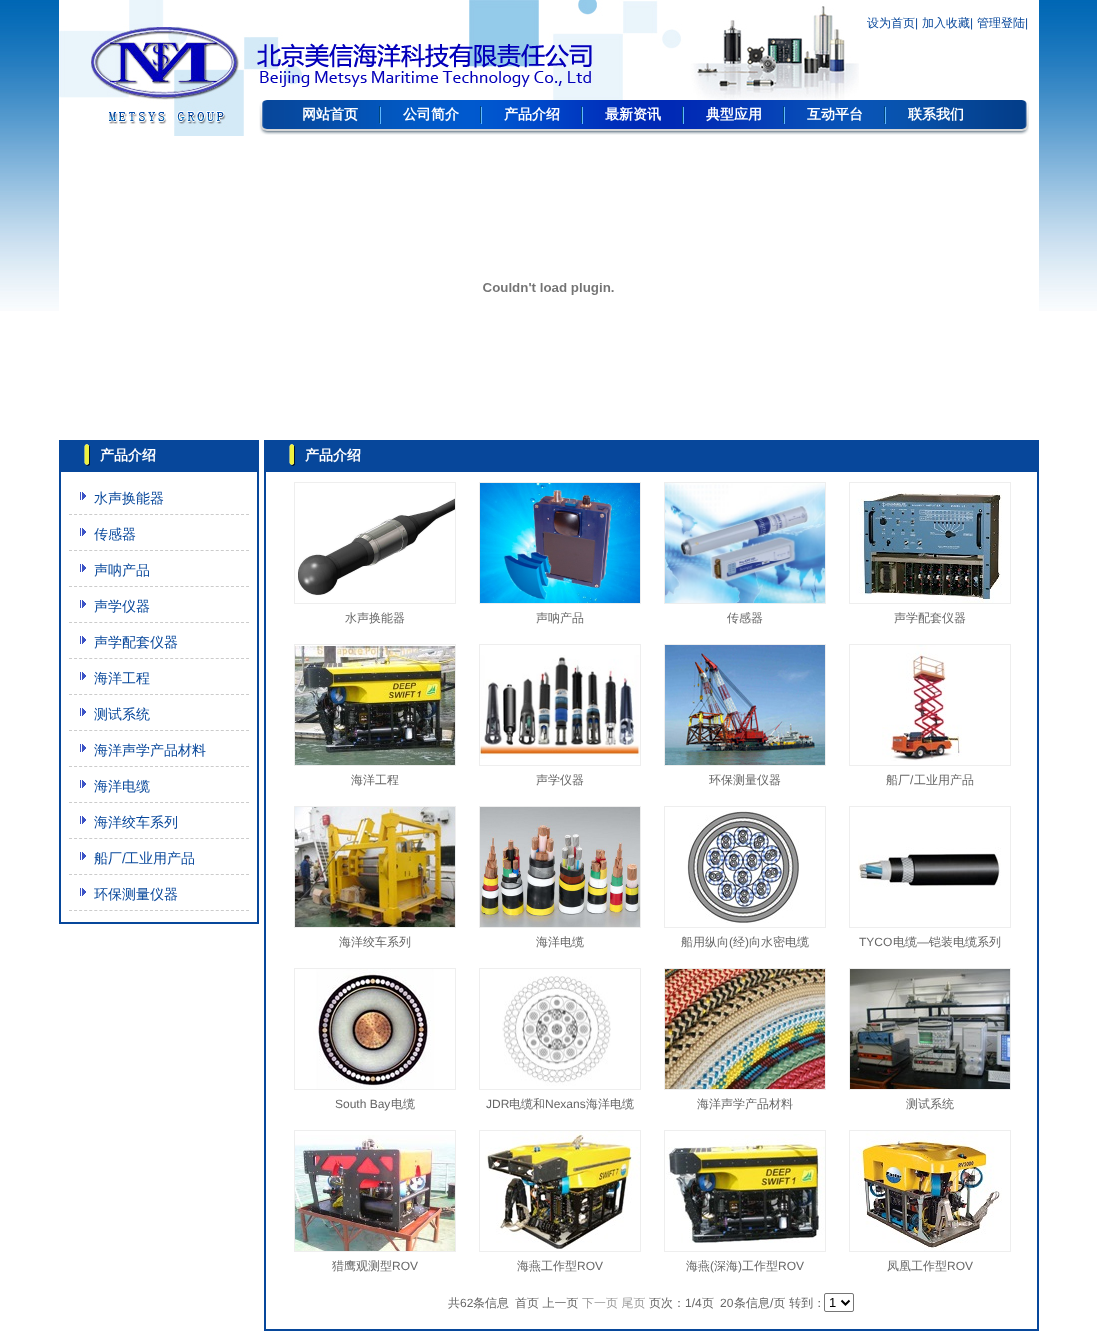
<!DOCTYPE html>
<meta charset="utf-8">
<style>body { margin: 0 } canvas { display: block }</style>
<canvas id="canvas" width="1097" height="1333"></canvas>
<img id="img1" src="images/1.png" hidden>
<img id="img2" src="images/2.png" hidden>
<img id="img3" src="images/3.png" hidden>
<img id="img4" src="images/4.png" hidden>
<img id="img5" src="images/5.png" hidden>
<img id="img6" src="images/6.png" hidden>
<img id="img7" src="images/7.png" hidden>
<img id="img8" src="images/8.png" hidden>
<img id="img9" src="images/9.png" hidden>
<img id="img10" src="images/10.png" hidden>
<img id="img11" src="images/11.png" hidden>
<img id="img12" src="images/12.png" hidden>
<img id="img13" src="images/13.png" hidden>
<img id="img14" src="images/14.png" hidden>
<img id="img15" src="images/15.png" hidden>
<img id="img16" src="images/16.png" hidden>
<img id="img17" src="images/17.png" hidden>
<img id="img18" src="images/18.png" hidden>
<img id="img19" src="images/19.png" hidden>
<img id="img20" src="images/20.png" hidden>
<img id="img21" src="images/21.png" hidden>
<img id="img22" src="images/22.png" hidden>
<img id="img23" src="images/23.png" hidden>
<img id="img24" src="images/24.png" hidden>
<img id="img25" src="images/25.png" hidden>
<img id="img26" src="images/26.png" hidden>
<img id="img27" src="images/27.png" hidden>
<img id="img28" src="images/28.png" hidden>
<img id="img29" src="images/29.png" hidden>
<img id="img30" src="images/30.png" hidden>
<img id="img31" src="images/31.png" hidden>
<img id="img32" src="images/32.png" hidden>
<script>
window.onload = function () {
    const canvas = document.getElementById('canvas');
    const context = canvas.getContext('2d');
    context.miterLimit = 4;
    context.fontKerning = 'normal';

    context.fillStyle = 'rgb(255, 255, 255)';
    context.fillRect(0, 0, 1097, 1333);
    context.drawImage(document.getElementById('img1'), 0, 0, 1097, 311);
    context.fillRect(59, 0, 980, 311);
    context.drawImage(document.getElementById('img2'), 59, 0, 800, 136);
    context.drawImage(document.getElementById('img3'), 259, 100, 770, 35);
    context.drawImage(document.getElementById('img4'), 379, 106, 2, 18);
    context.drawImage(document.getElementById('img5'), 480, 106, 2, 18);
    context.drawImage(document.getElementById('img6'), 581, 106, 2, 18);
    context.drawImage(document.getElementById('img7'), 682, 106, 2, 18);
    context.drawImage(document.getElementById('img8'), 783, 106, 2, 18);
    context.drawImage(document.getElementById('img9'), 884, 106, 2, 18);
    context.drawImage(document.getElementById('img10'), 483, 283, 131, 12);
    context.fillStyle = 'rgb(7, 71, 155)';
    context.fillRect(59, 440, 200, 30);
    context.drawImage(document.getElementById('img11'), 84, 444, 6, 22);
    context.strokeStyle = 'rgb(7, 71, 155)';
    context.lineWidth = 2;
    context.strokeRect(60, 471, 198, 452);
    context.drawImage(document.getElementById('img12'), 80, 492, 6, 8);
    context.beginPath();
    context.moveTo(69, 514.5);
    context.lineTo(249, 514.5);
    context.strokeStyle = 'rgb(204, 204, 204)';
    context.lineWidth = 1;
    context.setLineDash([3, 2.06]);
    context.stroke();
    context.drawImage(document.getElementById('img12'), 80, 528, 6, 8);
    context.beginPath();
    context.moveTo(69, 550.5);
    context.lineTo(249, 550.5);
    context.stroke();
    context.drawImage(document.getElementById('img12'), 80, 564, 6, 8);
    context.beginPath();
    context.moveTo(69, 586.5);
    context.lineTo(249, 586.5);
    context.stroke();
    context.drawImage(document.getElementById('img12'), 80, 600, 6, 8);
    context.beginPath();
    context.moveTo(69, 622.5);
    context.lineTo(249, 622.5);
    context.stroke();
    context.drawImage(document.getElementById('img12'), 80, 636, 6, 8);
    context.beginPath();
    context.moveTo(69, 658.5);
    context.lineTo(249, 658.5);
    context.stroke();
    context.drawImage(document.getElementById('img12'), 80, 672, 6, 8);
    context.beginPath();
    context.moveTo(69, 694.5);
    context.lineTo(249, 694.5);
    context.stroke();
    context.drawImage(document.getElementById('img12'), 80, 708, 6, 8);
    context.beginPath();
    context.moveTo(69, 730.5);
    context.lineTo(249, 730.5);
    context.stroke();
    context.drawImage(document.getElementById('img12'), 80, 744, 6, 8);
    context.beginPath();
    context.moveTo(69, 766.5);
    context.lineTo(249, 766.5);
    context.stroke();
    context.drawImage(document.getElementById('img12'), 80, 780, 6, 8);
    context.beginPath();
    context.moveTo(69, 802.5);
    context.lineTo(249, 802.5);
    context.stroke();
    context.drawImage(document.getElementById('img12'), 80, 816, 6, 8);
    context.beginPath();
    context.moveTo(69, 838.5);
    context.lineTo(249, 838.5);
    context.stroke();
    context.drawImage(document.getElementById('img12'), 80, 852, 6, 8);
    context.beginPath();
    context.moveTo(69, 874.5);
    context.lineTo(249, 874.5);
    context.stroke();
    context.drawImage(document.getElementById('img12'), 80, 888, 6, 8);
    context.beginPath();
    context.moveTo(69, 910.5);
    context.lineTo(249, 910.5);
    context.stroke();
    context.fillRect(264, 440, 775, 30);
    context.drawImage(document.getElementById('img11'), 289, 444, 6, 22);
    context.strokeStyle = 'rgb(7, 71, 155)';
    context.lineWidth = 2;
    context.setLineDash([]);
    context.strokeRect(265, 471, 773, 859);
    context.strokeStyle = 'rgb(238, 238, 238)';
    context.lineWidth = 1;
    context.strokeRect(294.5, 482.5, 161, 121);
    context.drawImage(document.getElementById('img13'), 298, 498, 157, 98);
    context.strokeRect(479.5, 482.5, 161, 121);
    context.drawImage(document.getElementById('img14'), 480, 483, 160, 120);
    context.strokeRect(664.5, 482.5, 161, 121);
    context.drawImage(document.getElementById('img15'), 665, 483, 160, 120);
    context.strokeRect(849.5, 482.5, 161, 121);
    context.drawImage(document.getElementById('img16'), 856, 491, 146, 112);
    context.strokeRect(294.5, 644.5, 161, 121);
    context.drawImage(document.getElementById('img17'), 295, 645, 160, 120);
    context.strokeRect(479.5, 644.5, 161, 121);
    context.drawImage(document.getElementById('img18'), 480, 655, 160, 104);
    context.strokeRect(664.5, 644.5, 161, 121);
    context.drawImage(document.getElementById('img19'), 665, 645, 160, 120);
    context.strokeRect(849.5, 644.5, 161, 121);
    context.drawImage(document.getElementById('img20'), 882, 645, 80, 116);
    context.strokeRect(294.5, 806.5, 161, 121);
    context.drawImage(document.getElementById('img21'), 295, 807, 160, 120);
    context.strokeRect(479.5, 806.5, 161, 121);
    context.drawImage(document.getElementById('img22'), 480, 807, 160, 120);
    context.strokeRect(664.5, 806.5, 161, 121);
    context.drawImage(document.getElementById('img23'), 687, 811, 112, 112);
    context.strokeRect(849.5, 806.5, 161, 121);
    context.drawImage(document.getElementById('img24'), 858, 847, 143, 40);
    context.strokeRect(294.5, 968.5, 161, 121);
    context.drawImage(document.getElementById('img25'), 313, 969, 122, 120);
    context.strokeRect(479.5, 968.5, 161, 121);
    context.drawImage(document.getElementById('img26'), 502, 976, 109, 110);
    context.strokeRect(664.5, 968.5, 161, 121);
    context.drawImage(document.getElementById('img27'), 665, 969, 160, 120);
    context.strokeRect(849.5, 968.5, 161, 121);
    context.drawImage(document.getElementById('img28'), 850, 969, 160, 120);
    context.strokeRect(294.5, 1130.5, 161, 121);
    context.drawImage(document.getElementById('img29'), 295, 1135, 160, 116);
    context.strokeRect(479.5, 1130.5, 161, 121);
    context.drawImage(document.getElementById('img30'), 485, 1131, 155, 119);
    context.strokeRect(664.5, 1130.5, 161, 121);
    context.drawImage(document.getElementById('img31'), 666, 1134, 159, 109);
    context.strokeRect(849.5, 1130.5, 161, 121);
    context.drawImage(document.getElementById('img32'), 850, 1131, 152, 120);
    context.beginPath();
    context.roundRect(824.5, 1293.5, 29, 18, 1.5);
    context.strokeStyle = 'rgb(118, 118, 118)';
    context.stroke();
    context.beginPath();
    context.moveTo(841.5, 1300.5);
    context.lineTo(845.5, 1304.5);
    context.lineTo(849.5, 1300.5);
    context.strokeStyle = 'rgb(0, 0, 0)';
    context.lineWidth = 2;
    context.stroke();
    context.font = '500 12px WenQuanYi Zen Hei';
    context.fillText('设为首页', 867, 27);
    context.font = '12px Liberation Sans';
    context.fillText('|', 915, 27);
    context.font = '500 12px WenQuanYi Zen Hei';
    context.fillText('加入收藏', 922, 27);
    context.font = '12px Liberation Sans';
    context.fillText('|', 970, 27);
    context.font = '500 12px WenQuanYi Zen Hei';
    context.fillText('管理登陆', 977, 27);
    context.font = '12px Liberation Sans';
    context.fillText('|', 1025, 27);
    context.font = 'bold 14px WenQuanYi Zen Hei';
    context.fillStyle = 'rgb(255, 255, 255)';
    context.fillText('网站首页', 302, 119);
    context.fillText('公司简介', 403, 119);
    context.fillText('产品介绍', 504, 119);
    context.fillText('最新资讯', 605, 119);
    context.fillText('典型应用', 706, 119);
    context.fillText('互动平台', 807, 119);
    context.fillText('联系我们', 908, 119);
    context.fillText('产品介绍', 100, 460);
    context.font = '500 14px WenQuanYi Zen Hei';
    context.fillStyle = 'rgb(7, 71, 155)';
    context.fillText('水声换能器', 94, 503);
    context.fillText('传感器', 94, 539);
    context.fillText('声呐产品', 94, 575);
    context.fillText('声学仪器', 94, 611);
    context.fillText('声学配套仪器', 94, 647);
    context.fillText('海洋工程', 94, 683);
    context.fillText('测试系统', 94, 719);
    context.fillText('海洋声学产品材料', 94, 755);
    context.fillText('海洋电缆', 94, 791);
    context.fillText('海洋绞车系列', 94, 827);
    context.fillText('船厂', 94, 863);
    context.font = '14px Liberation Sans';
    context.fillText('/', 122, 863);
    context.font = '500 14px WenQuanYi Zen Hei';
    context.fillText('工业用产品', 125, 863);
    context.fillText('环保测量仪器', 94, 899);
    context.font = 'bold 14px WenQuanYi Zen Hei';
    context.fillStyle = 'rgb(255, 255, 255)';
    context.fillText('产品介绍', 305, 460);
    context.font = '500 12px WenQuanYi Zen Hei';
    context.fillStyle = 'rgb(102, 102, 102)';
    context.fillText('水声换能器', 345, 622);
    context.fillText('声呐产品', 536, 622);
    context.fillText('传感器', 727, 622);
    context.fillText('声学配套仪器', 894, 622);
    context.fillText('海洋工程', 351, 784);
    context.fillText('声学仪器', 536, 784);
    context.fillText('环保测量仪器', 709, 784);
    context.fillText('船厂', 886, 784);
    context.font = '12px Liberation Sans';
    context.fillText('/', 910, 784);
    context.font = '500 12px WenQuanYi Zen Hei';
    context.fillText('工业用产品', 914, 784);
    context.fillText('海洋绞车系列', 339, 946);
    context.fillText('海洋电缆', 536, 946);
    context.fillText('船用纵向', 681, 946);
    context.font = '12px Liberation Sans';
    context.fillText('(', 729, 946);
    context.font = '500 12px WenQuanYi Zen Hei';
    context.fillText('经', 733, 946);
    context.font = '12px Liberation Sans';
    context.fillText(')', 745, 946);
    context.font = '500 12px WenQuanYi Zen Hei';
    context.fillText('向水密电缆', 749, 946);
    context.font = '12px Liberation Sans';
    context.fillText('TYCO', 859, 946);
    context.font = '500 12px WenQuanYi Zen Hei';
    context.fillText('电缆', 893, 946);
    context.font = '12px Liberation Sans';
    context.fillText('—', 917, 946);
    context.font = '500 12px WenQuanYi Zen Hei';
    context.fillText('铠装电缆系列', 929, 946);
    context.font = '12px Liberation Sans';
    context.fillText('South Bay', 335, 1108);
    context.font = '500 12px WenQuanYi Zen Hei';
    context.fillText('电缆', 391, 1108);
    context.font = '12px Liberation Sans';
    context.fillText('JDR', 486, 1108);
    context.font = '500 12px WenQuanYi Zen Hei';
    context.fillText('电缆和', 509, 1108);
    context.font = '12px Liberation Sans';
    context.fillText('Nexans', 545, 1108);
    context.font = '500 12px WenQuanYi Zen Hei';
    context.fillText('海洋电缆', 586, 1108);
    context.fillText('海洋声学产品材料', 697, 1108);
    context.fillText('测试系统', 906, 1108);
    context.fillText('猎鹰观测型', 332, 1270);
    context.font = '12px Liberation Sans';
    context.fillText('ROV', 392, 1270);
    context.font = '500 12px WenQuanYi Zen Hei';
    context.fillText('海燕工作型', 517, 1270);
    context.font = '12px Liberation Sans';
    context.fillText('ROV', 577, 1270);
    context.font = '500 12px WenQuanYi Zen Hei';
    context.fillText('海燕', 686, 1270);
    context.font = '12px Liberation Sans';
    context.fillText('(', 710, 1270);
    context.font = '500 12px WenQuanYi Zen Hei';
    context.fillText('深海', 714, 1270);
    context.font = '12px Liberation Sans';
    context.fillText(')', 738, 1270);
    context.font = '500 12px WenQuanYi Zen Hei';
    context.fillText('工作型', 742, 1270);
    context.font = '12px Liberation Sans';
    context.fillText('ROV', 778, 1270);
    context.font = '500 12px WenQuanYi Zen Hei';
    context.fillText('凤凰工作型', 887, 1270);
    context.font = '12px Liberation Sans';
    context.fillText('ROV', 947, 1270);
    context.font = '500 12px WenQuanYi Zen Hei';
    context.fillText('共', 448, 1307);
    context.font = '12px Liberation Sans';
    context.fillText('62', 460, 1307);
    context.font = '500 12px WenQuanYi Zen Hei';
    context.fillText('条信息', 473, 1307);
    context.fillText('首页 上一页', 515, 1307);
    context.fillStyle = 'rgb(153, 153, 153)';
    context.fillText('下一页 尾页', 582, 1307);
    context.fillStyle = 'rgb(102, 102, 102)';
    context.fillText('页次：', 649, 1307);
    context.font = '12px Liberation Sans';
    context.fillText('1/4', 685, 1307);
    context.font = '500 12px WenQuanYi Zen Hei';
    context.fillText('页', 702, 1307);
    context.font = '12px Liberation Sans';
    context.fillText('20', 720, 1307);
    context.font = '500 12px WenQuanYi Zen Hei';
    context.fillText('条信息 页 转到：', 734, 1307);
    context.font = '13px Liberation Sans';
    context.fillStyle = 'rgb(0, 0, 0)';
    context.fillText('1', 829, 1307);
    context.font = '12px Liberation Sans';
    context.fillStyle = 'rgb(102, 102, 102)';
    context.fillText('/', 770, 1307);
};
</script>
